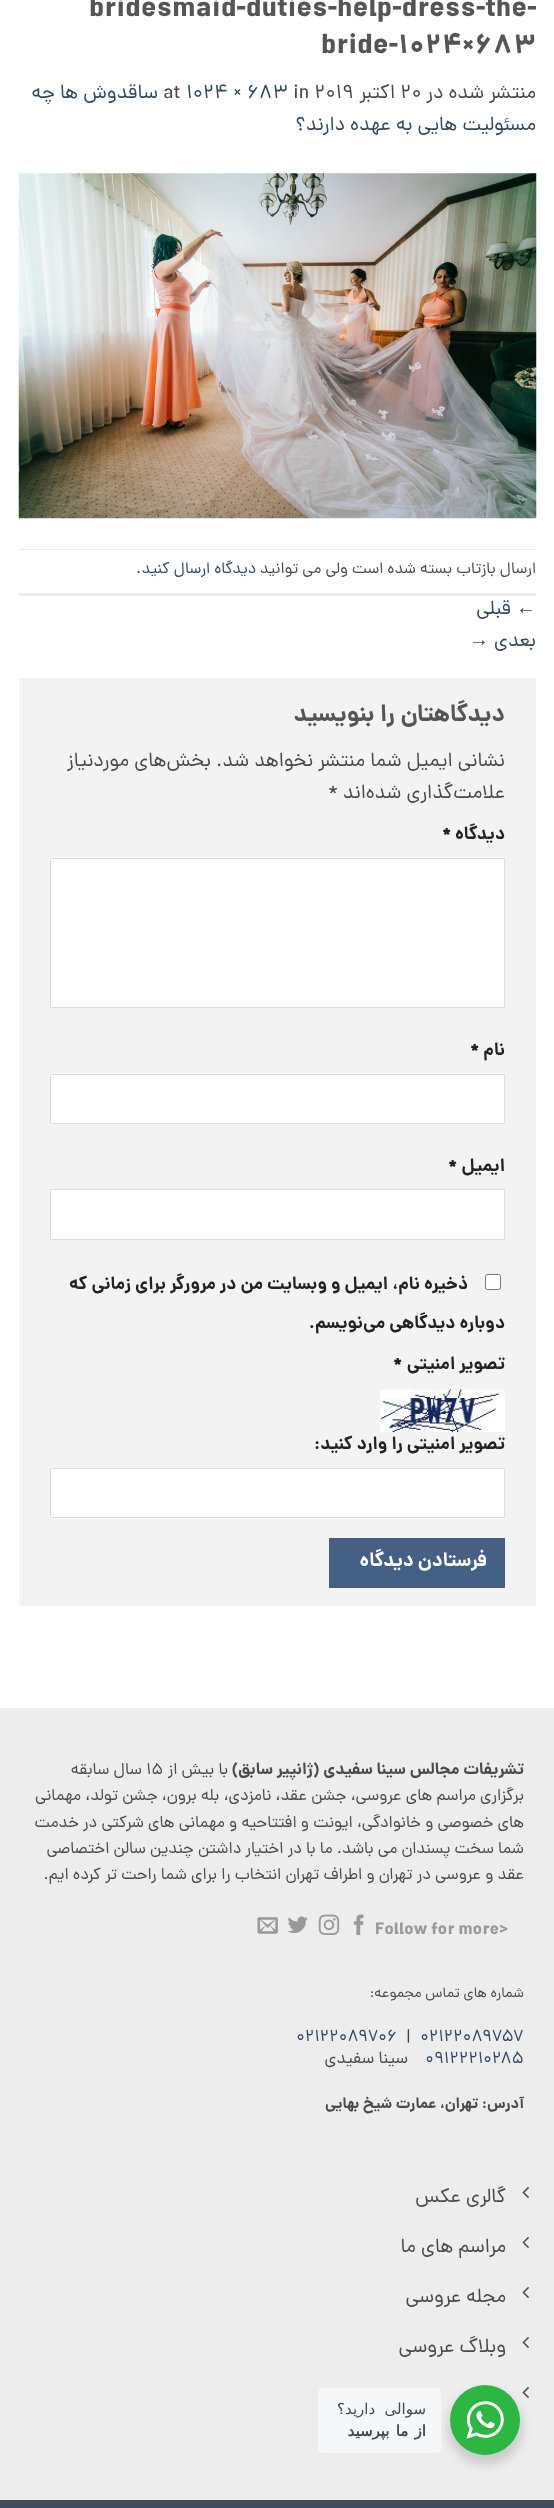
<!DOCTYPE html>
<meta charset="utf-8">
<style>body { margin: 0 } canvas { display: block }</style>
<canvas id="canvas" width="554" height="2508"></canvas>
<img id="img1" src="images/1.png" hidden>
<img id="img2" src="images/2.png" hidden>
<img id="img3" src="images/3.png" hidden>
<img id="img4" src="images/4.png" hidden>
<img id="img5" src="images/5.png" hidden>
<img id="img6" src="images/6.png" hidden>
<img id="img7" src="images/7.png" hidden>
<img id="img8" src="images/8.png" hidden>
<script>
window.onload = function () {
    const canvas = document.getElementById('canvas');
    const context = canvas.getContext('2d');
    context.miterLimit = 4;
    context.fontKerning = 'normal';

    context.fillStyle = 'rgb(255, 255, 255)';
    context.fillRect(0, 0, 554, 2508);
    context.drawImage(document.getElementById('img1'), 18, 173, 519, 346);
    context.fillStyle = 'rgb(236, 236, 236)';
    context.fillRect(19, 549, 517, 1);
    context.fillRect(19, 593, 517, 3);
    context.fillStyle = 'rgb(243, 243, 243)';
    context.fillRect(19, 678, 517, 928);
    context.fillStyle = 'rgb(255, 255, 255)';
    context.beginPath();
    context.rect(50.5, 858.5, 454, 149);
    context.fill();
    context.strokeStyle = 'rgb(221, 221, 221)';
    context.stroke();
    context.beginPath();
    context.rect(50.5, 1074.5, 454, 49);
    context.fill();
    context.stroke();
    context.beginPath();
    context.rect(50.5, 1189.5, 454, 50);
    context.fill();
    context.stroke();
    context.beginPath();
    context.roundRect(485.5, 1274.5, 15, 15, 2);
    context.fill();
    context.strokeStyle = 'rgb(118, 118, 118)';
    context.stroke();
    context.drawImage(document.getElementById('img2'), 380, 1389, 125, 43);
    context.beginPath();
    context.rect(50.5, 1468.5, 454, 49);
    context.fill();
    context.strokeStyle = 'rgb(221, 221, 221)';
    context.stroke();
    context.fillStyle = 'rgb(68, 96, 132)';
    context.beginPath();
    context.rect(329.5, 1538.5, 175, 49);
    context.fill();
    context.strokeStyle = 'rgb(65, 91, 125)';
    context.stroke();
    context.fillStyle = 'rgb(237, 237, 237)';
    context.fillRect(0, 1708, 554, 792);
    context.drawImage(document.getElementById('img3'), 353, 1914, 11, 21);
    context.drawImage(document.getElementById('img4'), 318, 1914, 22, 21);
    context.drawImage(document.getElementById('img5'), 287, 1916, 21, 18);
    context.drawImage(document.getElementById('img6'), 257, 1917, 21, 17);
    context.drawImage(document.getElementById('img7'), 522, 2187, 7, 11);
    context.drawImage(document.getElementById('img7'), 522, 2237, 7, 11);
    context.drawImage(document.getElementById('img7'), 522, 2287, 7, 11);
    context.drawImage(document.getElementById('img7'), 522, 2337, 7, 11);
    context.drawImage(document.getElementById('img7'), 522, 2387, 7, 11);
    context.fillStyle = 'rgb(63, 76, 94)';
    context.fillRect(0, 2500, 554, 8);
    context.fillStyle = 'rgba(0, 0, 0, 0.14)';
    context.filter = 'blur(5px)';
    context.beginPath();
    context.roundRect(448, 2390, 75, 75, 37.5);
    context.fill();
    context.filter = 'none';
    context.fillStyle = 'rgb(45, 183, 66)';
    context.beginPath();
    context.arc(485, 2420, 35, 0, 2 * Math.PI);
    context.fill();
    context.drawImage(document.getElementById('img8'), 466, 2401, 38, 38);
    context.fillStyle = 'rgb(245, 247, 249)';
    context.beginPath();
    context.roundRect(318, 2388, 123, 65, 5);
    context.fill();
    context.font = 'bold 28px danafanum';
    context.fillStyle = 'rgb(85, 85, 85)';
    context.fillText('bridesmaid-duties-help-dress-the-', 89, 16);
    context.fillText('bride-1024×683', 321, 53);
    context.direction = 'rtl';
    context.font = '20px danafanum';
    context.fillStyle = 'rgb(74, 74, 74)';
    context.fillText('منتشر شده در', 536, 98);
    context.direction = 'ltr';
    context.fillText('20', 400, 98);
    context.direction = 'rtl';
    context.fillText('اکتبر', 395, 98);
    context.direction = 'ltr';
    context.fillText('2019', 314, 98);
    context.fillText('in', 293, 98);
    context.fillStyle = 'rgb(51, 72, 98)';
    context.fillText('1024 × 683', 186, 98);
    context.fillStyle = 'rgb(74, 74, 74)';
    context.fillText('at', 163, 98);
    context.direction = 'rtl';
    context.fillStyle = 'rgb(51, 72, 98)';
    context.fillText('ساقدوش ها چه', 158, 98);
    context.fillText('مسئولیت هایی به عهده دارند؟', 536, 130);
    context.font = '16px danafanum';
    context.fillStyle = 'rgb(74, 74, 74)';
    context.fillText('ارسال بازتاب بسته شده است ولی می توانید', 536, 573);
    context.fillStyle = 'rgb(51, 72, 98)';
    context.fillText('دیدگاه ارسال کنید', 256, 573);
    context.direction = 'ltr';
    context.fillStyle = 'rgb(74, 74, 74)';
    context.fillText('.', 136, 573);
    context.font = '20px Liberation Sans';
    context.fillStyle = 'rgb(51, 72, 98)';
    context.fillText('←', 516, 614);
    context.direction = 'rtl';
    context.font = '20px danafanum';
    context.fillText('قبلی', 511, 614);
    context.fillText('بعدی', 536, 646);
    context.direction = 'ltr';
    context.font = '20px Liberation Sans';
    context.fillText('→', 469, 646);
    context.direction = 'rtl';
    context.font = 'bold 24px danafanum';
    context.fillStyle = 'rgb(85, 85, 85)';
    context.fillText('دیدگاهتان را بنویسید', 505, 721);
    context.font = '20px danafanum';
    context.fillStyle = 'rgb(74, 74, 74)';
    context.fillText('نشانی ایمیل شما منتشر نخواهد شد.', 505, 766);
    context.fillText('بخش‌های موردنیاز', 211, 766);
    context.fillText('علامت‌گذاری شده‌اند', 505, 798);
    context.direction = 'ltr';
    context.fillText('*', 328, 798);
    context.direction = 'rtl';
    context.font = 'bold 18px danafanum';
    context.fillStyle = 'rgb(34, 34, 34)';
    context.fillText('دیدگاه', 505, 839);
    context.direction = 'ltr';
    context.fillText('*', 442, 839);
    context.direction = 'rtl';
    context.fillText('نام', 505, 1055);
    context.direction = 'ltr';
    context.fillText('*', 470, 1055);
    context.direction = 'rtl';
    context.fillText('ایمیل', 505, 1171);
    context.direction = 'ltr';
    context.fillText('*', 448, 1171);
    context.direction = 'rtl';
    context.fillText('ذخیره نام، ایمیل و وبسایت من در مرورگر برای زمانی که', 468, 1289);
    context.fillText('دوباره دیدگاهی می‌نویسم.', 505, 1328);
    context.fillText('تصویر امنیتی', 505, 1369);
    context.direction = 'ltr';
    context.fillText('*', 393, 1369);
    context.direction = 'rtl';
    context.fillText('تصویر امنیتی را وارد کنید:', 505, 1449);
    context.letterSpacing = '0.6px';
    context.wordSpacing = '-1px';
    context.font = 'bold 19.5px danafanum';
    context.fillStyle = 'rgb(255, 255, 255)';
    context.fillText('فرستادن دیدگاه', 487, 1566);
    context.letterSpacing = '0px';
    context.wordSpacing = '0px';
    context.font = 'bold 16.5px danafanum';
    context.fillStyle = 'rgb(74, 74, 74)';
    context.fillText('تشریفات مجالس سینا سفیدی (ژانپیر سابق)', 524, 1774);
    context.font = '16.5px danafanum';
    context.fillText('با بیش از', 228, 1774);
    context.direction = 'ltr';
    context.fillText('۱۵', 146, 1774);
    context.direction = 'rtl';
    context.fillText('سال سابقه', 142, 1774);
    context.fillText('برگزاری مراسم های عروسی، جشن عقد، نامزدی، بله برون، جشن تولد، مهمانی', 524, 1800);
    context.fillText('های خصوصی و خانوادگی، ایونت و افتتاحیه و مهمانی های شرکتی در خدمت', 524, 1827);
    context.fillText('شما سخت پسندان می باشد. ما با در اختیار داشتن چندین سالن اختصاصی', 524, 1853);
    context.fillText('عقد و عروسی در تهران و اطراف تهران انتخاب را برای شما راحت تر کرده ایم.', 524, 1879);
    context.direction = 'ltr';
    context.font = 'bold 17px Roboto';
    context.fillStyle = 'rgb(153, 153, 153)';
    context.fillText('>', 499, 1934);
    context.font = 'bold 17px danafanum';
    context.fillText('Follow for more', 375, 1934);
    context.direction = 'rtl';
    context.font = '14.5px danafanum';
    context.fillStyle = 'rgb(74, 74, 74)';
    context.fillText('شماره های تماس مجموعه:', 524, 1997);
    context.direction = 'ltr';
    context.font = '17px danafanum';
    context.fillStyle = 'rgb(51, 72, 98)';
    context.fillText('۰۲۱۲۲۰۸۹۷۵۷', 420, 2041);
    context.fillText('|', 406, 2041);
    context.fillText('۰۲۱۲۲۰۸۹۷۰۶', 296, 2041);
    context.fillText('۰۹۱۲۲۲۱۰۲۸۵', 425, 2063);
    context.direction = 'rtl';
    context.fillStyle = 'rgb(74, 74, 74)';
    context.fillText('سینا سفیدی', 408, 2063);
    context.font = 'bold 15.25px danafanum';
    context.fillText('آدرس: تهران، عمارت شیخ بهایی', 524, 2108);
    context.font = '20px danafanum';
    context.fillText('گالری عکس', 506, 2202);
    context.fillText('مراسم های ما', 506, 2252);
    context.fillText('مجله عروسی', 506, 2302);
    context.fillText('وبلاگ عروسی', 506, 2352);
    context.letterSpacing = '-0.5px';
    context.wordSpacing = '5px';
    context.font = '15px DejaVu Sans';
    context.fillStyle = 'rgb(67, 71, 78)';
    context.fillText('سوالی دارید؟', 426, 2414);
    context.wordSpacing = '2px';
    context.font = 'bold 15px DejaVu Sans';
    context.fillText('از ما بپرسید', 426, 2436);
};
</script>
